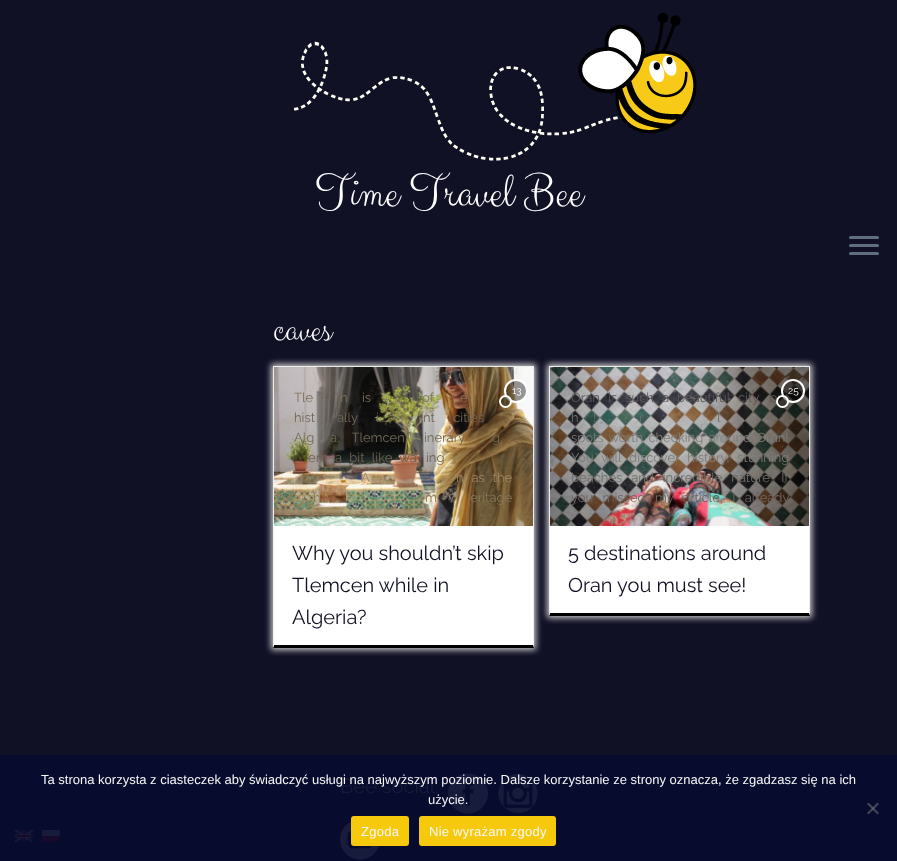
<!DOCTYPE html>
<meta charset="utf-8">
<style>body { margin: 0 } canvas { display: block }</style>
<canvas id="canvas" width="897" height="861"></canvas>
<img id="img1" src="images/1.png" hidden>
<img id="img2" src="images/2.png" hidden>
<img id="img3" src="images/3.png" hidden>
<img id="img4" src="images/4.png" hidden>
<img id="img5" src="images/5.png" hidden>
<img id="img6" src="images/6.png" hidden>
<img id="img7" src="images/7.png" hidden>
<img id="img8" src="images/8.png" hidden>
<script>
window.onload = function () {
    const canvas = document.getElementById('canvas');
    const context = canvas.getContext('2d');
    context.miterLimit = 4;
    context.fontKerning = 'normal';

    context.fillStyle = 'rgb(17, 17, 38)';
    context.fillRect(0, 0, 897, 861);
    context.fillStyle = 'rgb(7, 11, 45)';
    context.fillRect(0, 755, 897, 106);
    context.drawImage(document.getElementById('img1'), 294, 13, 403, 148);
    context.fillStyle = 'rgb(95, 111, 129)';
    context.beginPath();
    context.roundRect(849, 236, 30, 3, 1.5);
    context.fill();
    context.beginPath();
    context.roundRect(849, 244, 30, 3, 1.5);
    context.fill();
    context.beginPath();
    context.roundRect(849, 252, 30, 3, 1.5);
    context.fill();
    context.fillStyle = 'rgb(255, 255, 255)';
    context.fillRect(273, 526, 261, 122);
    context.save();
    context.beginPath();
    context.moveTo(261, 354);
    context.lineTo(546, 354);
    context.lineTo(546, 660);
    context.lineTo(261, 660);
    context.closePath();
    context.moveTo(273, 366);
    context.lineTo(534, 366);
    context.lineTo(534, 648);
    context.lineTo(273, 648);
    context.closePath();
    context.clip('evenodd');
    context.fillStyle = 'rgb(204, 204, 204)';
    context.filter = 'blur(3px)';
    context.beginPath();
    context.rect(271, 364, 265, 286);
    context.fill();
    context.filter = 'none';
    context.restore();
    context.fillStyle = 'rgb(238, 238, 238)';
    context.fillRect(273, 366, 261, 1);
    context.beginPath();
    context.moveTo(534, 366);
    context.lineTo(534, 648);
    context.lineTo(533, 645);
    context.lineTo(533, 367);
    context.closePath();
    context.fill();
    context.fillStyle = 'rgb(0, 0, 0)';
    context.beginPath();
    context.moveTo(534, 648);
    context.lineTo(273, 648);
    context.lineTo(274, 645);
    context.lineTo(533, 645);
    context.closePath();
    context.fill();
    context.fillStyle = 'rgb(238, 238, 238)';
    context.beginPath();
    context.moveTo(273, 648);
    context.lineTo(273, 366);
    context.lineTo(274, 367);
    context.lineTo(274, 645);
    context.closePath();
    context.fill();
    context.drawImage(document.getElementById('img2'), 274, 367, 259, 159);
    context.fillStyle = 'rgba(0, 0, 0, 0.4)';
    context.beginPath();
    context.arc(516, 391, 11, 0, 2 * Math.PI);
    context.fill();
    context.strokeStyle = 'rgb(255, 255, 255)';
    context.lineWidth = 2;
    context.stroke();
    context.beginPath();
    context.arc(505.5, 401.5, 5.5, 0, 2 * Math.PI);
    context.fill();
    context.stroke();
    context.fillStyle = 'rgb(255, 255, 255)';
    context.fillRect(549, 526, 261, 90);
    context.save();
    context.beginPath();
    context.moveTo(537, 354);
    context.lineTo(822, 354);
    context.lineTo(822, 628);
    context.lineTo(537, 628);
    context.closePath();
    context.moveTo(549, 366);
    context.lineTo(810, 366);
    context.lineTo(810, 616);
    context.lineTo(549, 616);
    context.closePath();
    context.clip('evenodd');
    context.fillStyle = 'rgb(204, 204, 204)';
    context.filter = 'blur(3px)';
    context.beginPath();
    context.rect(547, 364, 265, 254);
    context.fill();
    context.filter = 'none';
    context.restore();
    context.fillStyle = 'rgb(238, 238, 238)';
    context.fillRect(549, 366, 261, 1);
    context.beginPath();
    context.moveTo(810, 366);
    context.lineTo(810, 616);
    context.lineTo(809, 613);
    context.lineTo(809, 367);
    context.closePath();
    context.fill();
    context.fillStyle = 'rgb(0, 0, 0)';
    context.beginPath();
    context.moveTo(810, 616);
    context.lineTo(549, 616);
    context.lineTo(550, 613);
    context.lineTo(809, 613);
    context.closePath();
    context.fill();
    context.fillStyle = 'rgb(238, 238, 238)';
    context.beginPath();
    context.moveTo(549, 616);
    context.lineTo(549, 366);
    context.lineTo(550, 367);
    context.lineTo(550, 613);
    context.closePath();
    context.fill();
    context.drawImage(document.getElementById('img3'), 550, 367, 259, 159);
    context.drawImage(document.getElementById('img4'), 448, 773, 40, 41);
    context.drawImage(document.getElementById('img5'), 498, 774, 40, 39);
    context.drawImage(document.getElementById('img6'), 340, 821, 39, 39);
    context.drawImage(document.getElementById('img7'), 15, 830, 18, 12);
    context.drawImage(document.getElementById('img8'), 42, 830, 18, 12);
    context.fillStyle = 'rgba(128, 128, 128, 0.5)';
    context.beginPath();
    context.moveTo(877.5, 802.5);
    context.lineTo(879, 804);
    context.lineTo(868.5, 814.5);
    context.lineTo(867, 813);
    context.closePath();
    context.fill();
    context.beginPath();
    context.moveTo(867, 804);
    context.lineTo(868.5, 802.5);
    context.lineTo(879, 813);
    context.lineTo(877.5, 814.5);
    context.closePath();
    context.fill();
    context.fillStyle = 'rgb(246, 201, 12)';
    context.beginPath();
    context.roundRect(351, 816, 58, 30, 3);
    context.fill();
    context.beginPath();
    context.roundRect(419, 816, 137, 30, 3);
    context.fill();
    context.font = '48px Clicker Script';
    context.fillStyle = 'rgb(255, 255, 255)';
    context.fillText('Time Travel Bee', 315, 207);
    context.font = '38px Clicker Script';
    context.fillText('caves', 273, 341);
    context.wordSpacing = '11px';
    context.font = '100 13px Raleway';
    context.fillStyle = 'rgb(127, 113, 88)';
    context.fillText('Tle', 294, 402);
    context.fillText('n is', 340, 402);
    context.fillText('of', 422, 402);
    context.fillText('e', 460, 402);
    context.wordSpacing = '15px';
    context.fillStyle = 'rgb(112, 104, 85)';
    context.fillText('hist', 294, 422);
    context.fillText('ally i', 337, 422);
    context.fillText('nt cities', 423, 422);
    context.wordSpacing = '9px';
    context.fillText('Alg', 294, 442);
    context.fillText('a. Tlemcen', 330, 442);
    context.fillText('inerary', 424, 442);
    context.fillText('g', 492, 442);
    context.wordSpacing = '4px';
    context.fillStyle = 'rgb(112, 97, 77)';
    context.fillText('em a bit like wa', 308, 462);
    context.fillText('ing', 426, 462);
    context.wordSpacing = '4.5px';
    context.fillStyle = 'rgb(158, 134, 101)';
    context.fillText('A', 361, 482);
    context.fillText(',', 420, 482);
    context.fillText('n as the', 456, 482);
    context.wordSpacing = '2px';
    context.fillStyle = 'rgb(132, 121, 90)';
    context.fillText('h', 313, 502);
    context.fillText('m', 425, 502);
    context.fillText('eritage', 470, 502);
    context.wordSpacing = '0px';
    context.font = '100 10px Raleway';
    context.fillStyle = 'rgb(255, 255, 255)';
    context.fillText('13', 512, 394);
    context.font = '100 20px Raleway';
    context.fillStyle = 'rgb(17, 17, 38)';
    context.fillText('Why you shouldn’t skip', 292, 560);
    context.fillText('Tlemcen while in', 292, 592);
    context.fillText('Algeria?', 292, 624);
    context.wordSpacing = '4.75px';
    context.font = '100 13px Raleway';
    context.fillStyle = 'rgb(91, 89, 91)';
    context.fillText('Oran is such a beautiful city, but', 571, 402);
    context.wordSpacing = '17px';
    context.fillStyle = 'rgb(109, 111, 104)';
    context.fillText('h', 571, 422);
    context.fillText('!', 593, 422);
    context.fillText('r', 639, 422);
    context.fillText('l', 717, 422);
    context.wordSpacing = '2px';
    context.fillStyle = 'rgb(126, 124, 119)';
    context.fillText('spots worth checking around Oran!', 571, 442);
    context.wordSpacing = '4.5px';
    context.fillText('You will discover history, stunning', 571, 462);
    context.wordSpacing = '5.5px';
    context.fillStyle = 'rgb(109, 111, 104)';
    context.fillText('beaches and incredible nature. If', 571, 482);
    context.wordSpacing = '6px';
    context.fillStyle = 'rgb(112, 100, 96)';
    context.fillText('you missed my article, I already', 571, 502);
    context.fillStyle = 'rgba(0, 0, 0, 0.4)';
    context.beginPath();
    context.arc(793, 391, 11, 0, 2 * Math.PI);
    context.fill();
    context.stroke();
    context.wordSpacing = '0px';
    context.font = '100 10px Raleway';
    context.fillStyle = 'rgb(255, 255, 255)';
    context.fillText('25', 788, 394);
    context.fillStyle = 'rgba(0, 0, 0, 0.4)';
    context.beginPath();
    context.arc(782.5, 401.5, 5.5, 0, 2 * Math.PI);
    context.fill();
    context.stroke();
    context.font = '100 20px Raleway';
    context.fillStyle = 'rgb(17, 17, 38)';
    context.fillText('5 destinations around', 568, 560);
    context.fillText('Oran you must see!', 568, 592);
    context.fillStyle = 'rgb(23, 28, 59)';
    context.fillText('Bee social:', 340, 793);
    context.font = '13px Liberation Sans';
    context.fillStyle = 'rgb(247, 247, 247)';
    context.fillText('Ta strona korzysta z ciasteczek aby świadczyć usługi na najwyższym poziomie. Dalsze korzystanie ze strony oznacza, że zgadzasz się na ich', 41, 784);
    context.fillText('użycie.', 428, 804);
    context.letterSpacing = '0.25px';
    context.fillText('Zgoda', 361, 836);
    context.fillText('Nie wyrażam zgody', 429, 836);
};
</script>
